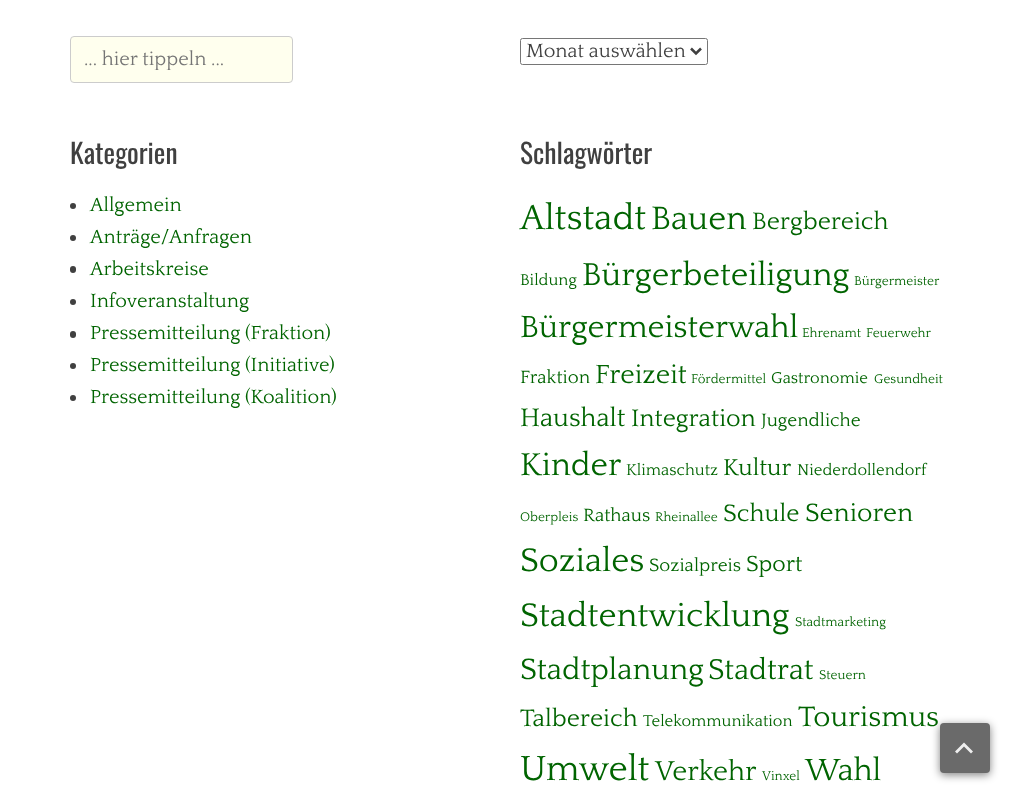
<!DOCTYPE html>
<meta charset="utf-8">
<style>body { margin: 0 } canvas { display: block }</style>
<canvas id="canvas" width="1014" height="797"></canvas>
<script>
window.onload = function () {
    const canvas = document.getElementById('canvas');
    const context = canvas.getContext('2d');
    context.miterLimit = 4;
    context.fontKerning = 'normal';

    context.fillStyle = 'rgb(255, 255, 255)';
    context.fillRect(0, 0, 1014, 797);
    context.fillStyle = 'rgb(255, 255, 238)';
    context.beginPath();
    context.roundRect(70.5, 36.5, 222, 46, 3.5);
    context.fill();
    context.strokeStyle = 'rgb(204, 204, 204)';
    context.stroke();
    context.beginPath();
    context.roundRect(520.5, 38.5, 187, 26, 2);
    context.strokeStyle = 'rgb(118, 118, 118)';
    context.stroke();
    context.beginPath();
    context.moveTo(691, 48.5);
    context.lineTo(696, 53.5);
    context.lineTo(701, 48.5);
    context.strokeStyle = 'rgb(64, 64, 64)';
    context.lineWidth = 2.5;
    context.stroke();
    context.fillStyle = 'rgb(64, 64, 64)';
    context.beginPath();
    context.arc(73, 206, 3, 0, 2 * Math.PI);
    context.fill();
    context.beginPath();
    context.arc(73, 238, 3, 0, 2 * Math.PI);
    context.fill();
    context.beginPath();
    context.roundRect(70, 266, 6, 7, 3);
    context.fill();
    context.beginPath();
    context.arc(73, 302, 3, 0, 2 * Math.PI);
    context.fill();
    context.beginPath();
    context.roundRect(70, 331, 6, 7, 3);
    context.fill();
    context.beginPath();
    context.arc(73, 366, 3, 0, 2 * Math.PI);
    context.fill();
    context.beginPath();
    context.arc(73, 398, 3, 0, 2 * Math.PI);
    context.fill();
    context.fillStyle = 'rgba(0, 0, 0, 0.49)';
    context.filter = 'blur(4px)';
    context.beginPath();
    context.roundRect(940, 725, 50, 50, 4);
    context.fill();
    context.filter = 'none';
    context.fillStyle = 'rgb(106, 106, 106)';
    context.beginPath();
    context.roundRect(940, 723, 50, 50, 4);
    context.fill();
    context.fillStyle = 'rgb(238, 238, 238)';
    context.beginPath();
    context.moveTo(971, 753.5);
    context.lineTo(964, 746.5);
    context.lineTo(957, 753.5);
    context.lineTo(955, 751.5);
    context.lineTo(964, 742.5);
    context.lineTo(973, 751.5);
    context.closePath();
    context.fill();
    context.save();
    context.beginPath();
    context.rect(84, 48, 176, 22);
    context.clip();
    context.font = '20px Quattrocento';
    context.fillStyle = 'rgb(117, 117, 117)';
    context.fillText('... hier tippeln ...', 84, 65);
    context.restore();
    context.font = '20px Quattrocento';
    context.fillStyle = 'rgb(64, 64, 64)';
    context.fillText('Monat auswählen', 526, 57);
    context.font = '27.5px Oswald';
    context.fillText('Kategorien', 70, 164);
    context.font = '20px Quattrocento';
    context.fillStyle = 'rgb(0, 100, 0)';
    context.fillText('Allgemein', 90, 211);
    context.fillText('Anträge/Anfragen', 90, 243);
    context.fillText('Arbeitskreise', 90, 275);
    context.fillText('Infoveranstaltung', 90, 307);
    context.fillText('Pressemitteilung (Fraktion)', 90, 339);
    context.fillText('Pressemitteilung (Initiative)', 90, 371);
    context.fillText('Pressemitteilung (Koalition)', 90, 403);
    context.font = '27.5px Oswald';
    context.fillStyle = 'rgb(64, 64, 64)';
    context.fillText('Schlagwörter', 520, 164);
    context.font = '36.5px Quattrocento';
    context.fillStyle = 'rgb(0, 100, 0)';
    context.fillText('Altstadt', 520, 229);
    context.font = '34px Quattrocento';
    context.fillText('Bauen', 651, 229);
    context.font = '25px Quattrocento';
    context.fillText('Bergbereich', 752, 229);
    context.font = '16.5px Quattrocento';
    context.fillText('Bildung', 520, 285);
    context.font = '33.25px Quattrocento';
    context.fillText('Bürgerbeteiligung', 582, 285);
    context.font = '13.25px Quattrocento';
    context.fillText('Bürgermeister', 854, 285);
    context.font = '32.25px Quattrocento';
    context.fillText('Bürgermeisterwahl', 520, 337);
    context.font = '13.25px Quattrocento';
    context.fillText('Ehrenamt', 802, 337);
    context.fillText('Feuerwehr', 866, 337);
    context.font = '18.75px Quattrocento';
    context.fillText('Fraktion', 520, 383);
    context.font = '27.5px Quattrocento';
    context.fillText('Freizeit', 595, 383);
    context.font = '13.25px Quattrocento';
    context.fillText('Fördermittel', 691, 383);
    context.font = '16.5px Quattrocento';
    context.fillText('Gastronomie', 771, 383);
    context.font = '13.25px Quattrocento';
    context.fillText('Gesundheit', 874, 383);
    context.font = '26.5px Quattrocento';
    context.fillText('Haushalt', 520, 426);
    context.font = '25px Quattrocento';
    context.fillText('Integration', 631, 426);
    context.font = '18.75px Quattrocento';
    context.fillText('Jugendliche', 761, 426);
    context.font = '33px Quattrocento';
    context.fillText('Kinder', 520, 475);
    context.font = '16.5px Quattrocento';
    context.fillText('Klimaschutz', 626, 475);
    context.font = '24px Quattrocento';
    context.fillText('Kultur', 723, 475);
    context.font = '16.5px Quattrocento';
    context.fillText('Niederdollendorf', 797, 475);
    context.font = '13.25px Quattrocento';
    context.fillText('Oberpleis', 520, 521);
    context.font = '18.75px Quattrocento';
    context.fillText('Rathaus', 583, 521);
    context.font = '13.25px Quattrocento';
    context.fillText('Rheinallee', 655, 521);
    context.font = '25px Quattrocento';
    context.fillText('Schule', 723, 521);
    context.font = '26.5px Quattrocento';
    context.fillText('Senioren', 805, 521);
    context.font = '34.25px Quattrocento';
    context.fillText('Soziales', 520, 571);
    context.font = '18.75px Quattrocento';
    context.fillText('Sozialpreis', 649, 571);
    context.font = '23px Quattrocento';
    context.fillText('Sport', 746, 571);
    context.font = '34.25px Quattrocento';
    context.fillText('Stadtentwicklung', 520, 626);
    context.font = '13.25px Quattrocento';
    context.fillText('Stadtmarketing', 795, 626);
    context.font = '30.75px Quattrocento';
    context.fillText('Stadtplanung', 520, 679);
    context.font = '30px Quattrocento';
    context.fillText('Stadtrat', 708, 679);
    context.font = '13.25px Quattrocento';
    context.fillText('Steuern', 819, 679);
    context.font = '25px Quattrocento';
    context.fillText('Talbereich', 520, 726);
    context.font = '16.5px Quattrocento';
    context.fillText('Telekommunikation', 643, 726);
    context.font = '29.5px Quattrocento';
    context.fillText('Tourismus', 798, 726);
    context.font = '36.5px Quattrocento';
    context.fillText('Umwelt', 520, 780);
    context.font = '28.5px Quattrocento';
    context.fillText('Verkehr', 655, 780);
    context.font = '13.25px Quattrocento';
    context.fillText('Vinxel', 762, 780);
    context.font = '32px Quattrocento';
    context.fillText('Wahl', 805, 780);
};
</script>
